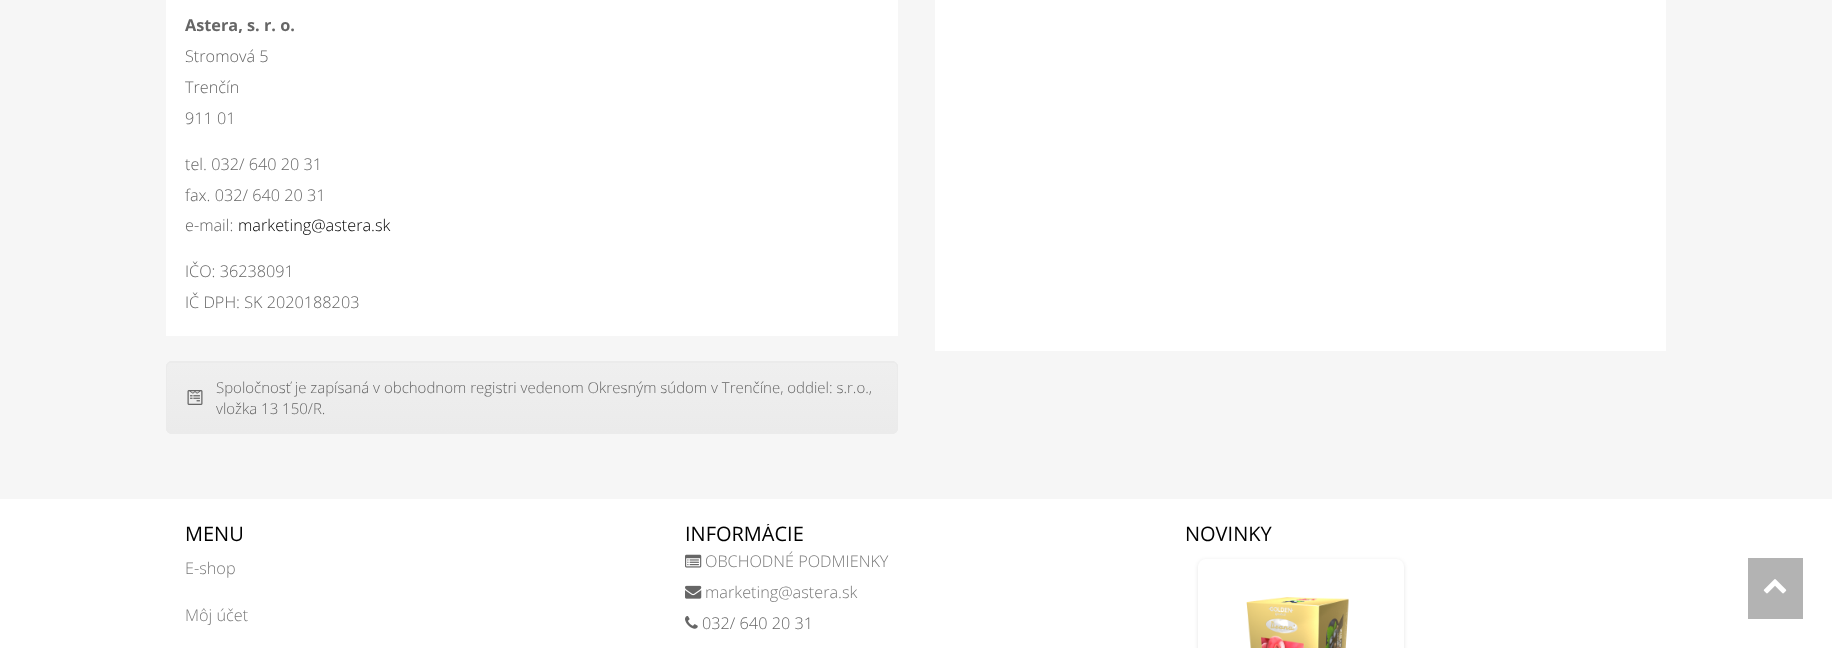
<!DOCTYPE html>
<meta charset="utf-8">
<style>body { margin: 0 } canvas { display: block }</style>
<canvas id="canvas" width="1832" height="648"></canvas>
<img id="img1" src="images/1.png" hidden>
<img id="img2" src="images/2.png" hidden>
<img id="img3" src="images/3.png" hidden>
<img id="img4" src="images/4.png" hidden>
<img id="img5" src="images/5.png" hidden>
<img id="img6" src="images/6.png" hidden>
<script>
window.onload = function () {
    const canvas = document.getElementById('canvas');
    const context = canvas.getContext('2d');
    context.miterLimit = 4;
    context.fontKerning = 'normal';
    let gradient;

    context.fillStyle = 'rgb(246, 246, 246)';
    context.fillRect(0, 0, 1832, 648);
    context.fillStyle = 'rgb(255, 255, 255)';
    context.fillRect(166, 0, 732, 336);
    context.fillStyle = 'rgb(235, 235, 235)';
    context.beginPath();
    context.roundRect(166, 361, 732, 73, 6);
    context.fill();
    context.save();
    context.beginPath();
    context.roundRect(166, 361, 732, 73, 6);
    context.clip();
    gradient = context.createLinearGradient(532, 362, 532, 433);
    gradient.addColorStop(0, 'rgb(239, 239, 239)');
    gradient.addColorStop(1, 'rgb(235, 235, 235)');
    context.fillStyle = gradient;
    context.fillRect(166, 363, 732, 70);
    context.restore();
    context.beginPath();
    context.roundRect(166.5, 361.5, 731, 72, 5.5);
    context.strokeStyle = 'rgb(235, 235, 235)';
    context.stroke();
    context.drawImage(document.getElementById('img1'), 187, 390, 16, 15);
    context.fillStyle = 'rgb(255, 255, 255)';
    context.fillRect(935, 0, 731, 351);
    context.fillRect(0, 499, 1832, 149);
    context.drawImage(document.getElementById('img2'), 685, 554, 17, 14);
    context.drawImage(document.getElementById('img3'), 685, 585, 17, 14);
    context.drawImage(document.getElementById('img4'), 685, 616, 13, 13);
    context.fillStyle = 'rgba(0, 0, 0, 0.1)';
    context.filter = 'blur(2px)';
    context.beginPath();
    context.roundRect(1198, 560, 206, 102, 8);
    context.fill();
    context.filter = 'none';
    context.fillStyle = 'rgb(255, 255, 255)';
    context.beginPath();
    context.roundRect(1198, 559, 206, 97, 8);
    context.fill();
    context.drawImage(document.getElementById('img5'), 1246, 597, 103, 51);
    context.fillStyle = 'rgb(179, 179, 179)';
    context.fillRect(1748, 558, 55, 61);
    context.drawImage(document.getElementById('img6'), 1763, 579, 24, 15);
    context.font = 'bold 16.25px Open Sans';
    context.fillStyle = 'rgb(102, 102, 102)';
    context.fillText('Astera, s. r. o.', 185, 31);
    context.font = '300 16.25px Open Sans';
    context.fillText('Stromová 5', 185, 62);
    context.fillText('Trenčín', 185, 93);
    context.fillText('911 01', 185, 124);
    context.fillText('tel. 032/ 640 20 31', 185, 170);
    context.fillText('fax. 032/ 640 20 31', 185, 201);
    context.fillText('e-mail:', 185, 231);
    context.fillStyle = 'rgb(0, 0, 0)';
    context.fillText('marketing@astera.sk', 238, 231);
    context.fillStyle = 'rgb(102, 102, 102)';
    context.fillText('IČO: 36238091', 185, 277);
    context.fillText('IČ DPH: SK 2020188203', 185, 308);
    context.font = '300 15px Open Sans';
    context.fillText('Spoločnosť je zapísaná v obchodnom registri vedenom Okresným súdom v Trenčíne, oddiel: s.r.o.,', 216, 393);
    context.fillText('vložka 13 150/R.', 216, 414);
    context.font = '20px Open Sans';
    context.fillStyle = 'rgb(0, 0, 0)';
    context.fillText('MENU', 185, 541);
    context.font = '300 16.25px Open Sans';
    context.fillStyle = 'rgb(122, 122, 122)';
    context.fillText('E-shop', 185, 574);
    context.fillText('Môj účet', 185, 621);
    context.save();
    context.beginPath();
    context.rect(685, 524, 463, 115);
    context.clip();
    context.font = '20px Open Sans';
    context.fillStyle = 'rgb(0, 0, 0)';
    context.fillText('INFORMÁCIE', 685, 541);
    context.restore();
    context.fillText('OBCHODNÉ PODMIENKY', 705, 567);
    context.fillText('marketing@astera.sk', 705, 598);
    context.fillStyle = 'rgb(102, 102, 102)';
    context.fillText('032/ 640 20 31', 702, 629);
    context.font = '20px Open Sans';
    context.fillStyle = 'rgb(0, 0, 0)';
    context.fillText('NOVINKY', 1185, 541);
};
</script>
